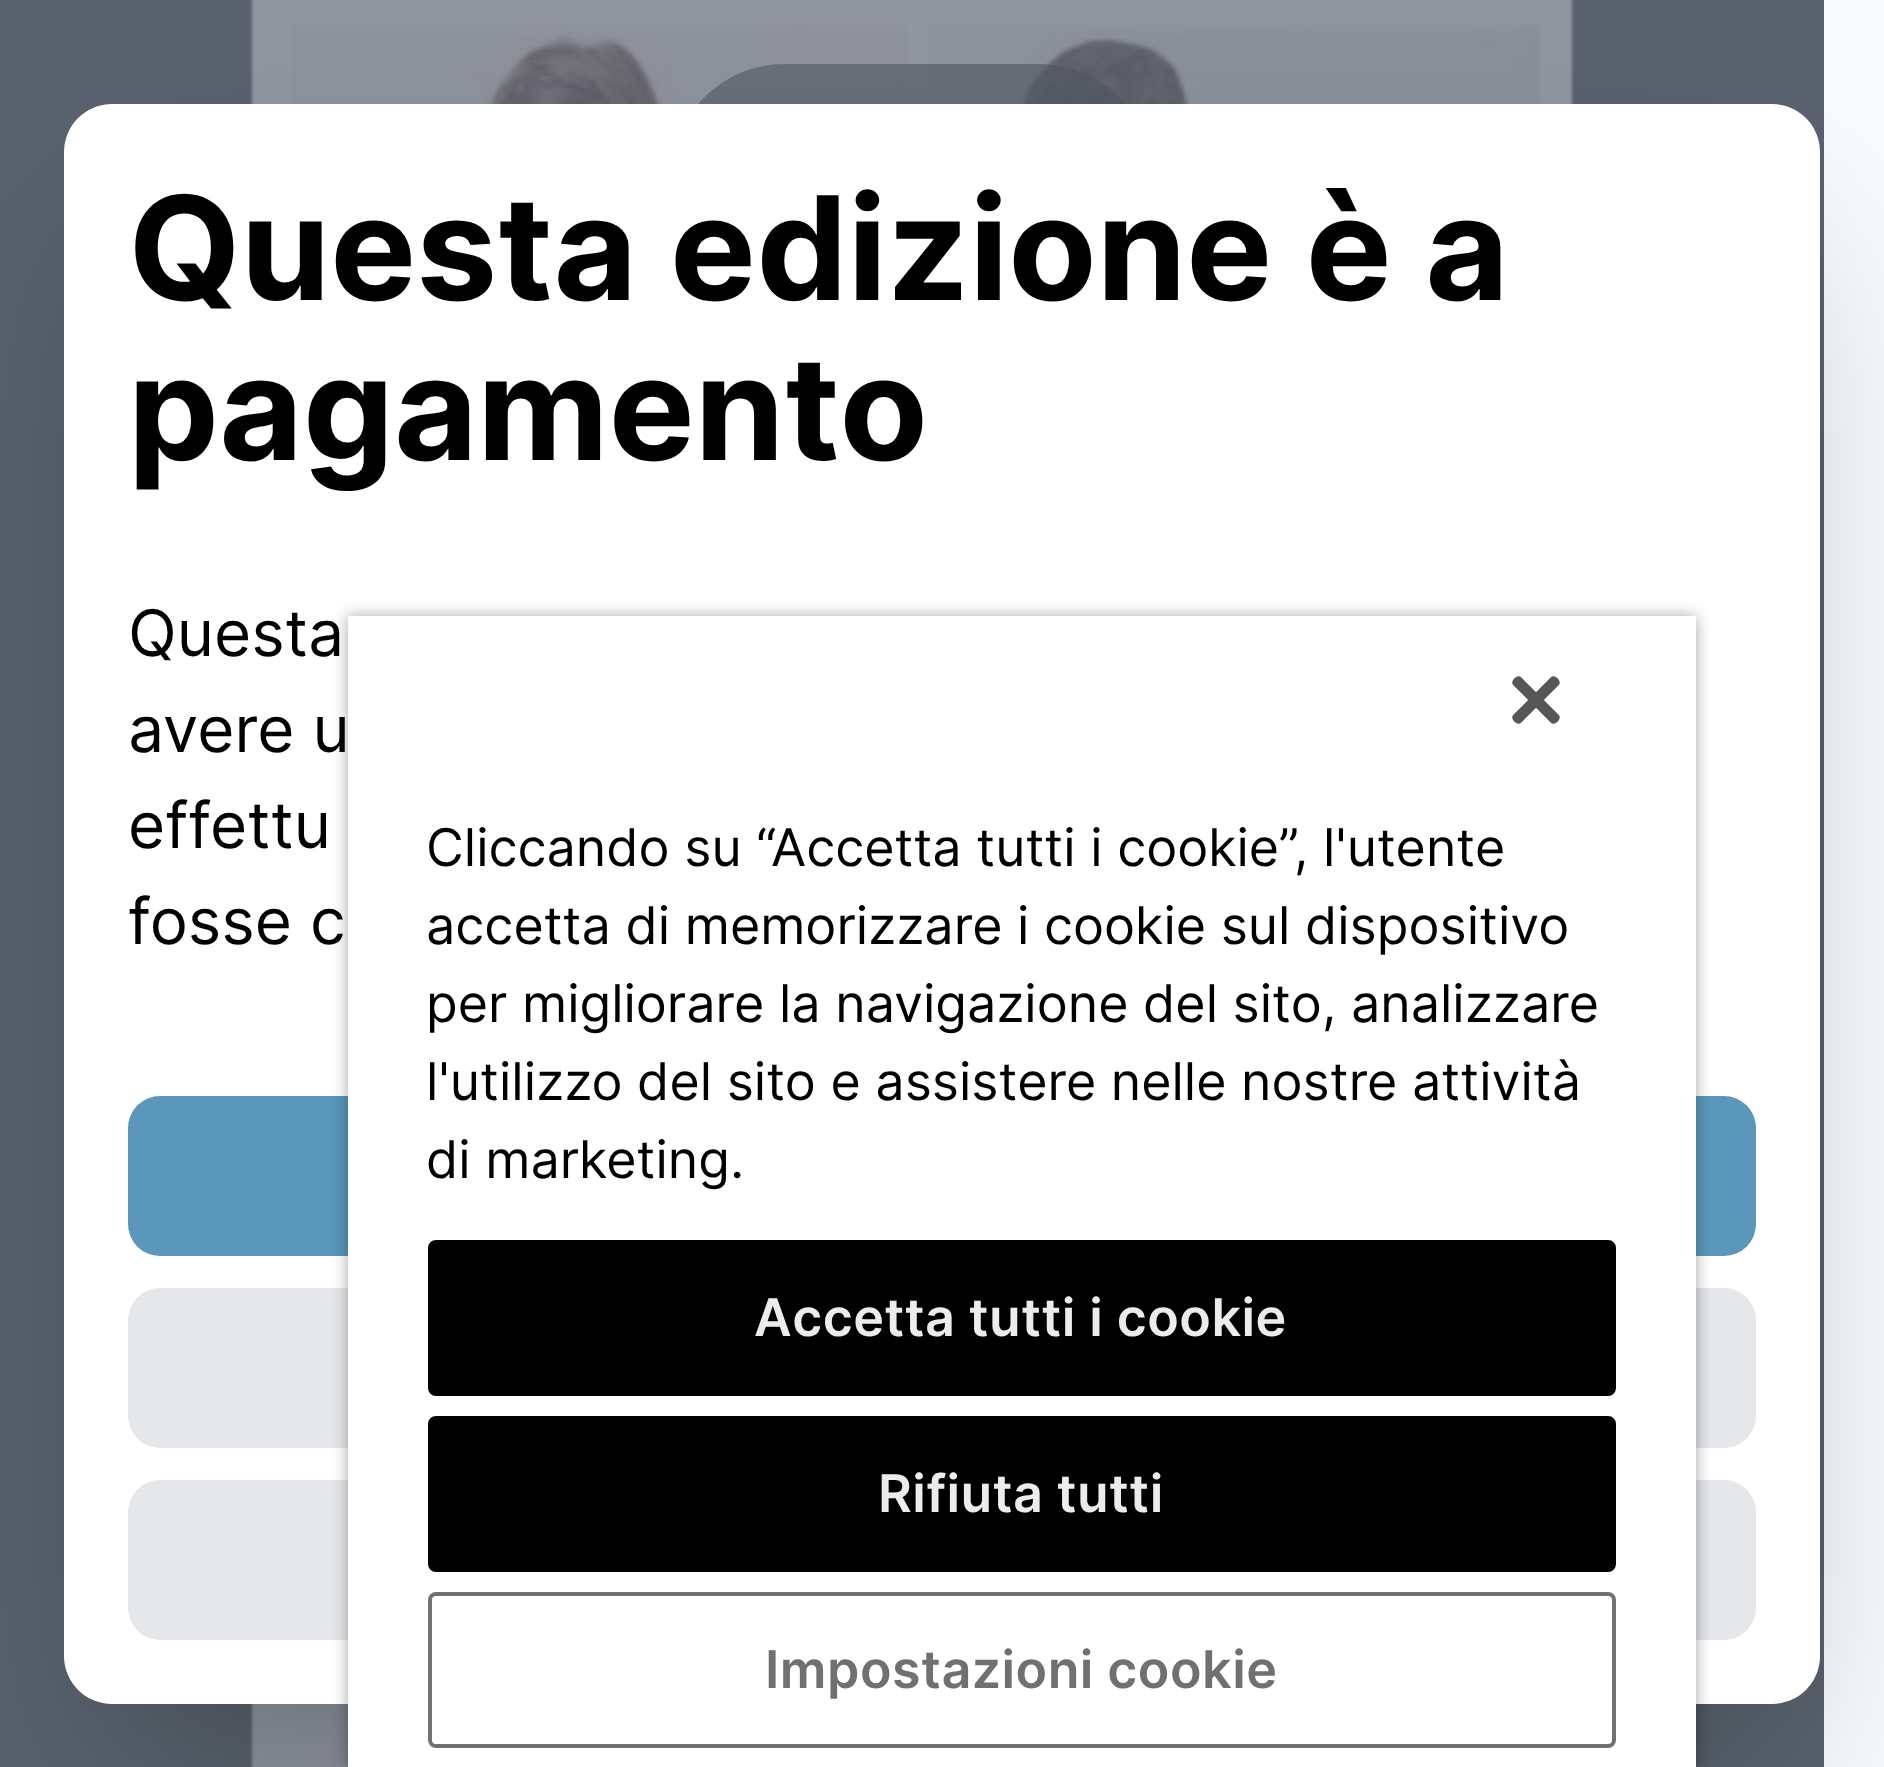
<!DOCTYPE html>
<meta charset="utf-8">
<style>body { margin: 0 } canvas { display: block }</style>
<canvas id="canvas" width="1884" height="1767"></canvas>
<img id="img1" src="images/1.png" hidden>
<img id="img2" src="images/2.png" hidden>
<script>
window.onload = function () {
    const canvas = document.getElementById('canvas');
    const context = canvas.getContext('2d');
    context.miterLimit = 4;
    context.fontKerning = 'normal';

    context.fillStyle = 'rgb(249, 250, 251)';
    context.fillRect(0, 0, 1884, 1767);
    context.fillStyle = 'rgb(89, 98, 110)';
    context.fillRect(0, 0, 1824, 1767);
    context.drawImage(document.getElementById('img1'), 250, 0, 1324, 1767);
    context.fillStyle = 'rgba(80, 86, 96, 0.6)';
    context.beginPath();
    context.roundRect(672, 64, 480, 224, 112);
    context.fill();
    context.fillStyle = 'rgba(0, 0, 0, 0.25)';
    context.filter = 'blur(100px)';
    context.beginPath();
    context.rect(112, 252, 1660, 1504);
    context.fill();
    context.filter = 'none';
    context.fillStyle = 'rgb(255, 255, 255)';
    context.beginPath();
    context.roundRect(64, 104, 1756, 1600, 48);
    context.fill();
    context.fillStyle = 'rgb(90, 151, 186)';
    context.beginPath();
    context.roundRect(128, 1096, 1628, 160, 32);
    context.fill();
    context.fillStyle = 'rgb(229, 231, 235)';
    context.beginPath();
    context.roundRect(128, 1288, 1628, 160, 32);
    context.fill();
    context.beginPath();
    context.roundRect(128, 1480, 1628, 160, 32);
    context.fill();
    context.fillStyle = 'rgba(0, 0, 0, 0.35)';
    context.filter = 'blur(8px)';
    context.beginPath();
    context.rect(348, 616, 1348, 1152);
    context.fill();
    context.filter = 'none';
    context.fillStyle = 'rgb(255, 255, 255)';
    context.fillRect(348, 616, 1348, 1151);
    context.drawImage(document.getElementById('img2'), 1512, 676, 48, 48);
    context.fillStyle = 'rgb(0, 0, 0)';
    context.beginPath();
    context.roundRect(430, 1242, 1184, 152, 6);
    context.fill();
    context.strokeStyle = 'rgb(0, 0, 0)';
    context.lineWidth = 4;
    context.stroke();
    context.beginPath();
    context.roundRect(430, 1418, 1184, 152, 6);
    context.fill();
    context.stroke();
    context.beginPath();
    context.roundRect(430, 1594, 1184, 152, 6);
    context.strokeStyle = 'rgb(112, 112, 112)';
    context.stroke();
    context.font = 'bold 144px Inter';
    context.fillText('Questa edizione è a', 128, 300);
    context.fillText('pagamento', 128, 460);
    context.font = '64px Inter';
    context.fillText('Questa', 128, 656);
    context.fillText('avere u', 128, 752);
    context.fillText('effettu', 128, 848);
    context.fillText('fosse c', 128, 944);
    context.font = '52px Inter';
    context.fillText('Cliccando su “Accetta tutti i cookie”, l\'utente', 426, 866);
    context.fillText('accetta di memorizzare i cookie sul dispositivo', 426, 944);
    context.fillText('per migliorare la navigazione del sito, analizzare', 426, 1022);
    context.fillText('l\'utilizzo del sito e assistere nelle nostre attività', 426, 1100);
    context.fillText('di marketing.', 426, 1178);
    context.letterSpacing = '0.5px';
    context.font = '600 52px Inter';
    context.fillStyle = 'rgb(236, 236, 236)';
    context.fillText('Accetta tutti i cookie', 754, 1336);
    context.fillText('Rifiuta tutti', 878, 1512);
    context.fillStyle = 'rgb(112, 112, 112)';
    context.fillText('Impostazioni cookie', 765, 1688);
};
</script>
